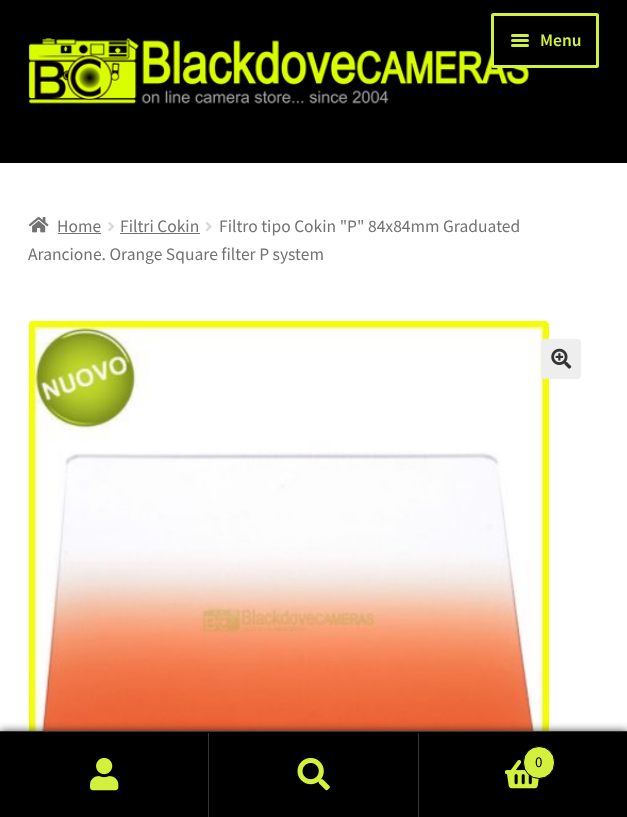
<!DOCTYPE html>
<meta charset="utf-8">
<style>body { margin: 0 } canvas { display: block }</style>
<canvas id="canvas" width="627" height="817"></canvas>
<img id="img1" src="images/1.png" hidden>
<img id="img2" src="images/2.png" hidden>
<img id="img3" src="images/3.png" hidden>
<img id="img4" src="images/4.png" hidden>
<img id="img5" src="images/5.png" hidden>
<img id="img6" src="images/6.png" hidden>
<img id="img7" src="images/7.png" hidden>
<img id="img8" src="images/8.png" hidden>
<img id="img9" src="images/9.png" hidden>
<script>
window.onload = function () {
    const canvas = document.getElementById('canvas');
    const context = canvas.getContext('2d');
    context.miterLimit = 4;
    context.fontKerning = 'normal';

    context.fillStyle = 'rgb(255, 255, 255)';
    context.fillRect(0, 0, 627, 817);
    context.fillStyle = 'rgb(0, 0, 0)';
    context.fillRect(0, 0, 627, 163);
    context.drawImage(document.getElementById('img1'), 28, 38, 501, 66);
    context.beginPath();
    context.roundRect(492.5, 14.5, 105, 52, 1);
    context.fill();
    context.strokeStyle = 'rgb(211, 240, 61)';
    context.lineWidth = 3;
    context.stroke();
    context.fillStyle = 'rgb(211, 240, 61)';
    context.beginPath();
    context.roundRect(511, 34, 18, 3, 1.5);
    context.fill();
    context.beginPath();
    context.roundRect(511, 39, 18, 3, 1.5);
    context.fill();
    context.beginPath();
    context.roundRect(511, 44, 18, 3, 1.5);
    context.fill();
    context.drawImage(document.getElementById('img2'), 28, 217, 21, 16);
    context.fillStyle = 'rgb(114, 114, 114)';
    context.fillRect(58, 233, 43, 1);
    context.drawImage(document.getElementById('img3'), 108, 222, 7, 10);
    context.fillRect(120, 233, 80, 1);
    context.drawImage(document.getElementById('img4'), 205, 222, 7, 10);
    context.drawImage(document.getElementById('img5'), 29, 321, 520, 410);
    context.fillStyle = 'rgb(238, 238, 238)';
    context.beginPath();
    context.roundRect(541, 339, 40, 40, 4);
    context.fill();
    context.drawImage(document.getElementById('img6'), 551, 348, 21, 21);
    context.fillStyle = 'rgba(0, 0, 0, 0.7)';
    context.filter = 'blur(4px)';
    context.beginPath();
    context.rect(0, 731, 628, 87);
    context.fill();
    context.filter = 'none';
    context.fillStyle = 'rgb(0, 0, 0)';
    context.fillRect(0, 732, 627, 1);
    context.fillStyle = 'rgb(51, 51, 51)';
    context.fillRect(0, 731, 627, 1);
    context.fillStyle = 'rgb(0, 0, 0)';
    context.fillRect(0, 733, 208, 84);
    context.fillStyle = 'rgb(51, 51, 51)';
    context.fillRect(208, 733, 1, 84);
    context.drawImage(document.getElementById('img7'), 90, 757, 29, 34);
    context.fillStyle = 'rgb(0, 0, 0)';
    context.fillRect(209, 733, 209, 84);
    context.fillStyle = 'rgb(51, 51, 51)';
    context.fillRect(418, 733, 1, 84);
    context.drawImage(document.getElementById('img8'), 297, 757, 33, 34);
    context.fillStyle = 'rgb(0, 0, 0)';
    context.fillRect(419, 733, 208, 84);
    context.drawImage(document.getElementById('img9'), 505, 760, 34, 29);
    context.fillStyle = 'rgb(211, 240, 61)';
    context.beginPath();
    context.roundRect(523.5, 746.5, 31, 32, 15.5);
    context.fill();
    context.strokeStyle = 'rgb(0, 0, 0)';
    context.lineWidth = 1;
    context.stroke();
    context.font = '600 17.5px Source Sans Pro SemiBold';
    context.fillText('Menu', 540, 46);
    context.font = '17.5px Source Sans Pro';
    context.fillStyle = 'rgb(114, 114, 114)';
    context.fillText('Home', 57, 232);
    context.fillText('Filtri Cokin', 120, 232);
    context.fillText('Filtro tipo Cokin "P" 84x84mm Graduated', 219, 232);
    context.fillText('Arancione. Orange Square filter P system', 28, 260);
    context.font = '15px Source Sans Pro';
    context.fillStyle = 'rgb(0, 0, 0)';
    context.fillText('0', 535, 767);
};
</script>
